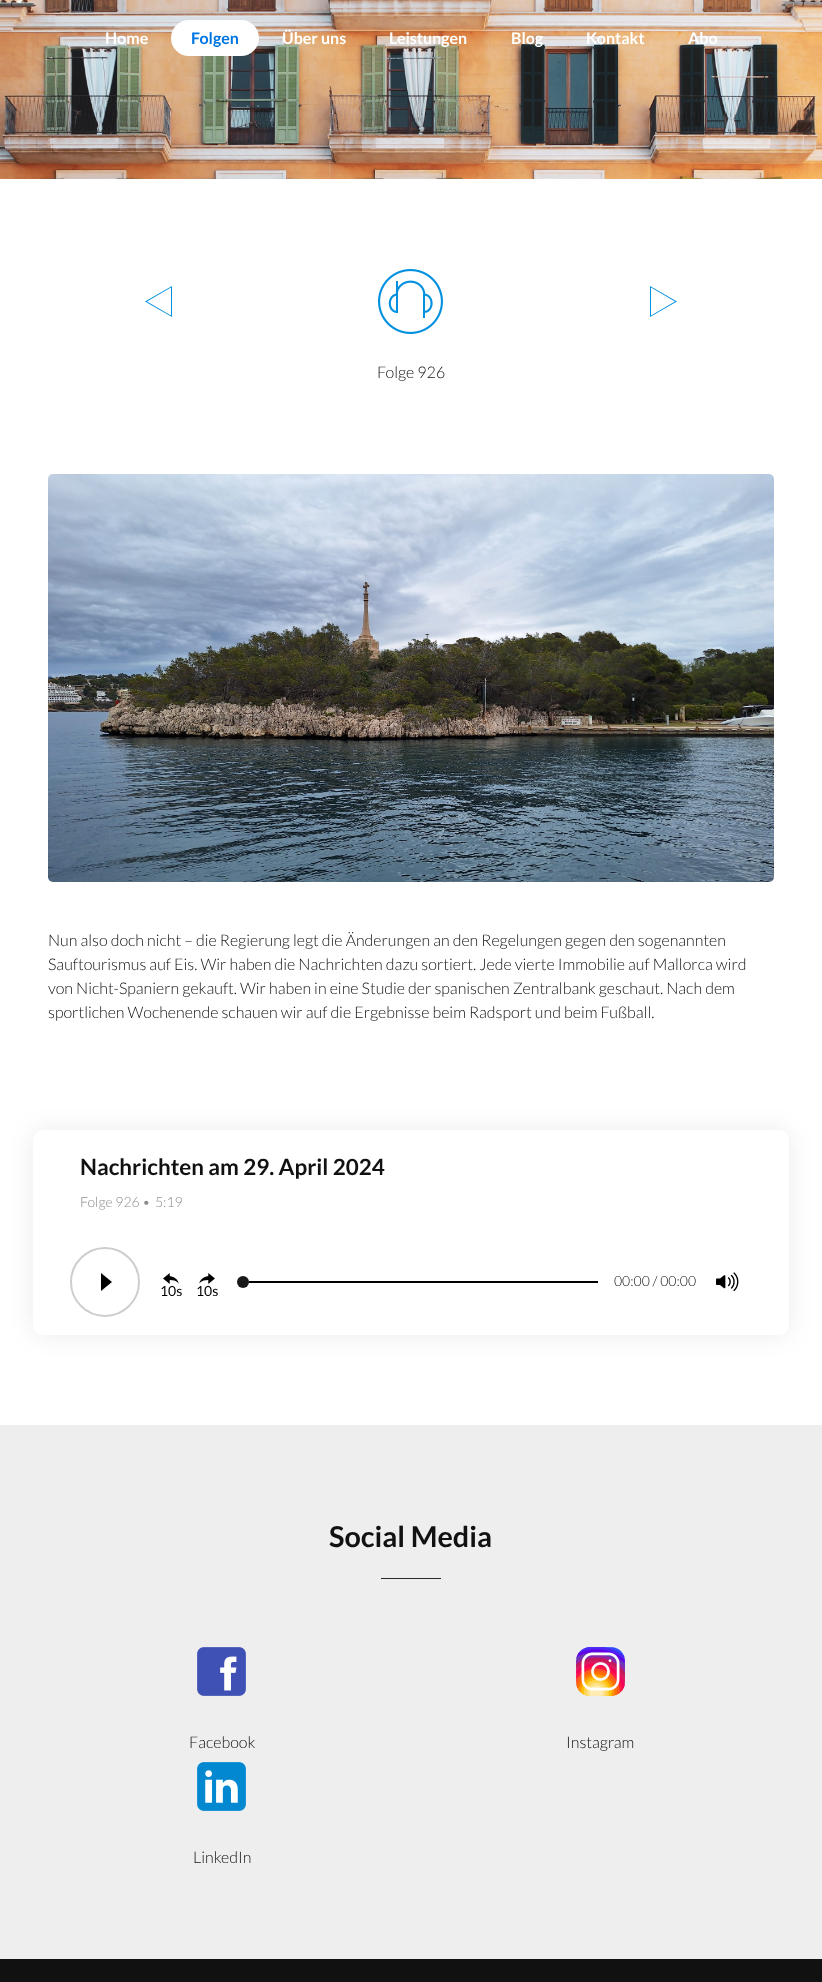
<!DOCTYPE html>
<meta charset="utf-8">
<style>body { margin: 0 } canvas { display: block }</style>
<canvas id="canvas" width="822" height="1982"></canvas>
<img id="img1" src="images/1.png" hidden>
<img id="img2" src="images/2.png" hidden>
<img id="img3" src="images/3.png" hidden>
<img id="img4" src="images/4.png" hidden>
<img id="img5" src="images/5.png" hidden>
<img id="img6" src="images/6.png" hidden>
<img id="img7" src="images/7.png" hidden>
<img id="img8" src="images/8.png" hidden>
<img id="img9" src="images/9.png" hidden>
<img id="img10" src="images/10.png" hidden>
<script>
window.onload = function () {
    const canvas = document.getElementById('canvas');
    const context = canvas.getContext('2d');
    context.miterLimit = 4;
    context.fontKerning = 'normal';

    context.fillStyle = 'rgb(255, 255, 255)';
    context.fillRect(0, 0, 822, 1982);
    context.drawImage(document.getElementById('img1'), 0, 0, 822, 179);
    context.beginPath();
    context.roundRect(171, 20, 88, 36, 18);
    context.fill();
    context.fillStyle = 'rgb(0, 144, 223)';
    context.beginPath();
    context.moveTo(172, 317);
    context.lineTo(145, 301.5);
    context.lineTo(172, 286);
    context.closePath();
    context.moveTo(147, 301.5);
    context.lineTo(171, 315.5);
    context.lineTo(171, 287.5);
    context.closePath();
    context.fill();
    context.beginPath();
    context.moveTo(650, 286);
    context.lineTo(677, 301.5);
    context.lineTo(650, 317);
    context.closePath();
    context.moveTo(675, 301.5);
    context.lineTo(651, 287.5);
    context.lineTo(651, 315.5);
    context.closePath();
    context.fill();
    context.drawImage(document.getElementById('img2'), 378, 269, 65, 65);
    context.drawImage(document.getElementById('img3'), 48, 474, 726, 408);
    context.fillStyle = 'rgba(0, 0, 0, 0.08)';
    context.filter = 'blur(12.5px)';
    context.beginPath();
    context.roundRect(33, 1130, 756, 205, 10);
    context.fill();
    context.filter = 'none';
    context.fillStyle = 'rgb(255, 255, 255)';
    context.beginPath();
    context.roundRect(33, 1130, 756, 205, 10);
    context.fill();
    context.beginPath();
    context.arc(105, 1282, 34, 0, 2 * Math.PI);
    context.strokeStyle = 'rgb(206, 206, 206)';
    context.lineWidth = 2;
    context.stroke();
    context.drawImage(document.getElementById('img4'), 101, 1273, 11, 18);
    context.fillStyle = 'rgb(0, 0, 0)';
    context.fillRect(240, 1281, 358, 2);
    context.fillStyle = 'rgba(255, 255, 255, 0.9)';
    context.beginPath();
    context.arc(243, 1282, 6, 0, 2 * Math.PI);
    context.fill();
    context.fillStyle = 'rgba(0, 0, 0, 0.9)';
    context.beginPath();
    context.arc(243, 1282, 6, 0, 2 * Math.PI);
    context.fill();
    context.drawImage(document.getElementById('img5'), 716, 1272, 23, 20);
    context.drawImage(document.getElementById('img6'), 163, 1273, 16, 11);
    context.drawImage(document.getElementById('img7'), 199, 1273, 16, 11);
    context.fillStyle = 'rgb(238, 238, 238)';
    context.fillRect(0, 1425, 822, 534);
    context.fillStyle = 'rgb(40, 40, 40)';
    context.fillRect(381, 1578, 60, 1);
    context.drawImage(document.getElementById('img8'), 197, 1647, 49, 49);
    context.drawImage(document.getElementById('img9'), 576, 1647, 49, 49);
    context.drawImage(document.getElementById('img10'), 197, 1762, 49, 49);
    context.fillStyle = 'rgb(17, 17, 17)';
    context.fillRect(0, 1959, 822, 23);
    context.font = 'bold 16px Lato';
    context.fillStyle = 'rgb(255, 255, 255)';
    context.fillText('Home', 105, 44);
    context.fillStyle = 'rgb(0, 118, 227)';
    context.fillText('Folgen', 191, 44);
    context.fillStyle = 'rgb(255, 255, 255)';
    context.fillText('Über uns', 282, 44);
    context.fillText('Leistungen', 389, 44);
    context.fillText('Blog', 511, 44);
    context.fillText('Kontakt', 586, 44);
    context.fillText('Abo', 688, 44);
    context.font = '300 16px Lato';
    context.fillStyle = 'rgb(17, 17, 17)';
    context.fillText('Folge 926', 377, 378);
    context.fillText('Nun also doch nicht – die Regierung legt die Änderungen an den Regelungen gegen den sogenannten', 48, 946);
    context.fillText('Sauftourismus auf Eis. Wir haben die Nachrichten dazu sortiert. Jede vierte Immobilie auf Mallorca wird', 48, 970);
    context.fillText('von Nicht-Spaniern gekauft. Wir haben in eine Studie der spanischen Zentralbank geschaut. Nach dem', 48, 994);
    context.fillText('sportlichen Wochenende schauen wir auf die Ergebnisse beim Radsport und beim Fußball.', 48, 1018);
    context.font = 'bold 22.4px Lato';
    context.fillText('Nachrichten am 29. April 2024', 80, 1175);
    context.font = '300 14px Lato';
    context.fillStyle = 'rgb(142, 139, 140)';
    context.fillText('Folge 926 •', 80, 1207);
    context.fillText('5:19', 155, 1207);
    context.fillStyle = 'rgb(17, 17, 17)';
    context.fillText('00:00 / 00:00', 614, 1286);
    context.font = '14px Lato';
    context.fillStyle = 'rgb(0, 0, 0)';
    context.fillText('10s', 160, 1296);
    context.fillText('10s', 196, 1296);
    context.font = 'bold 28.75px Lato';
    context.fillStyle = 'rgb(17, 17, 17)';
    context.fillText('Social Media', 329, 1547);
    context.font = '300 16px Lato';
    context.fillText('Facebook', 189, 1748);
    context.fillText('Instagram', 566, 1748);
    context.fillText('LinkedIn', 193, 1863);
};
</script>
